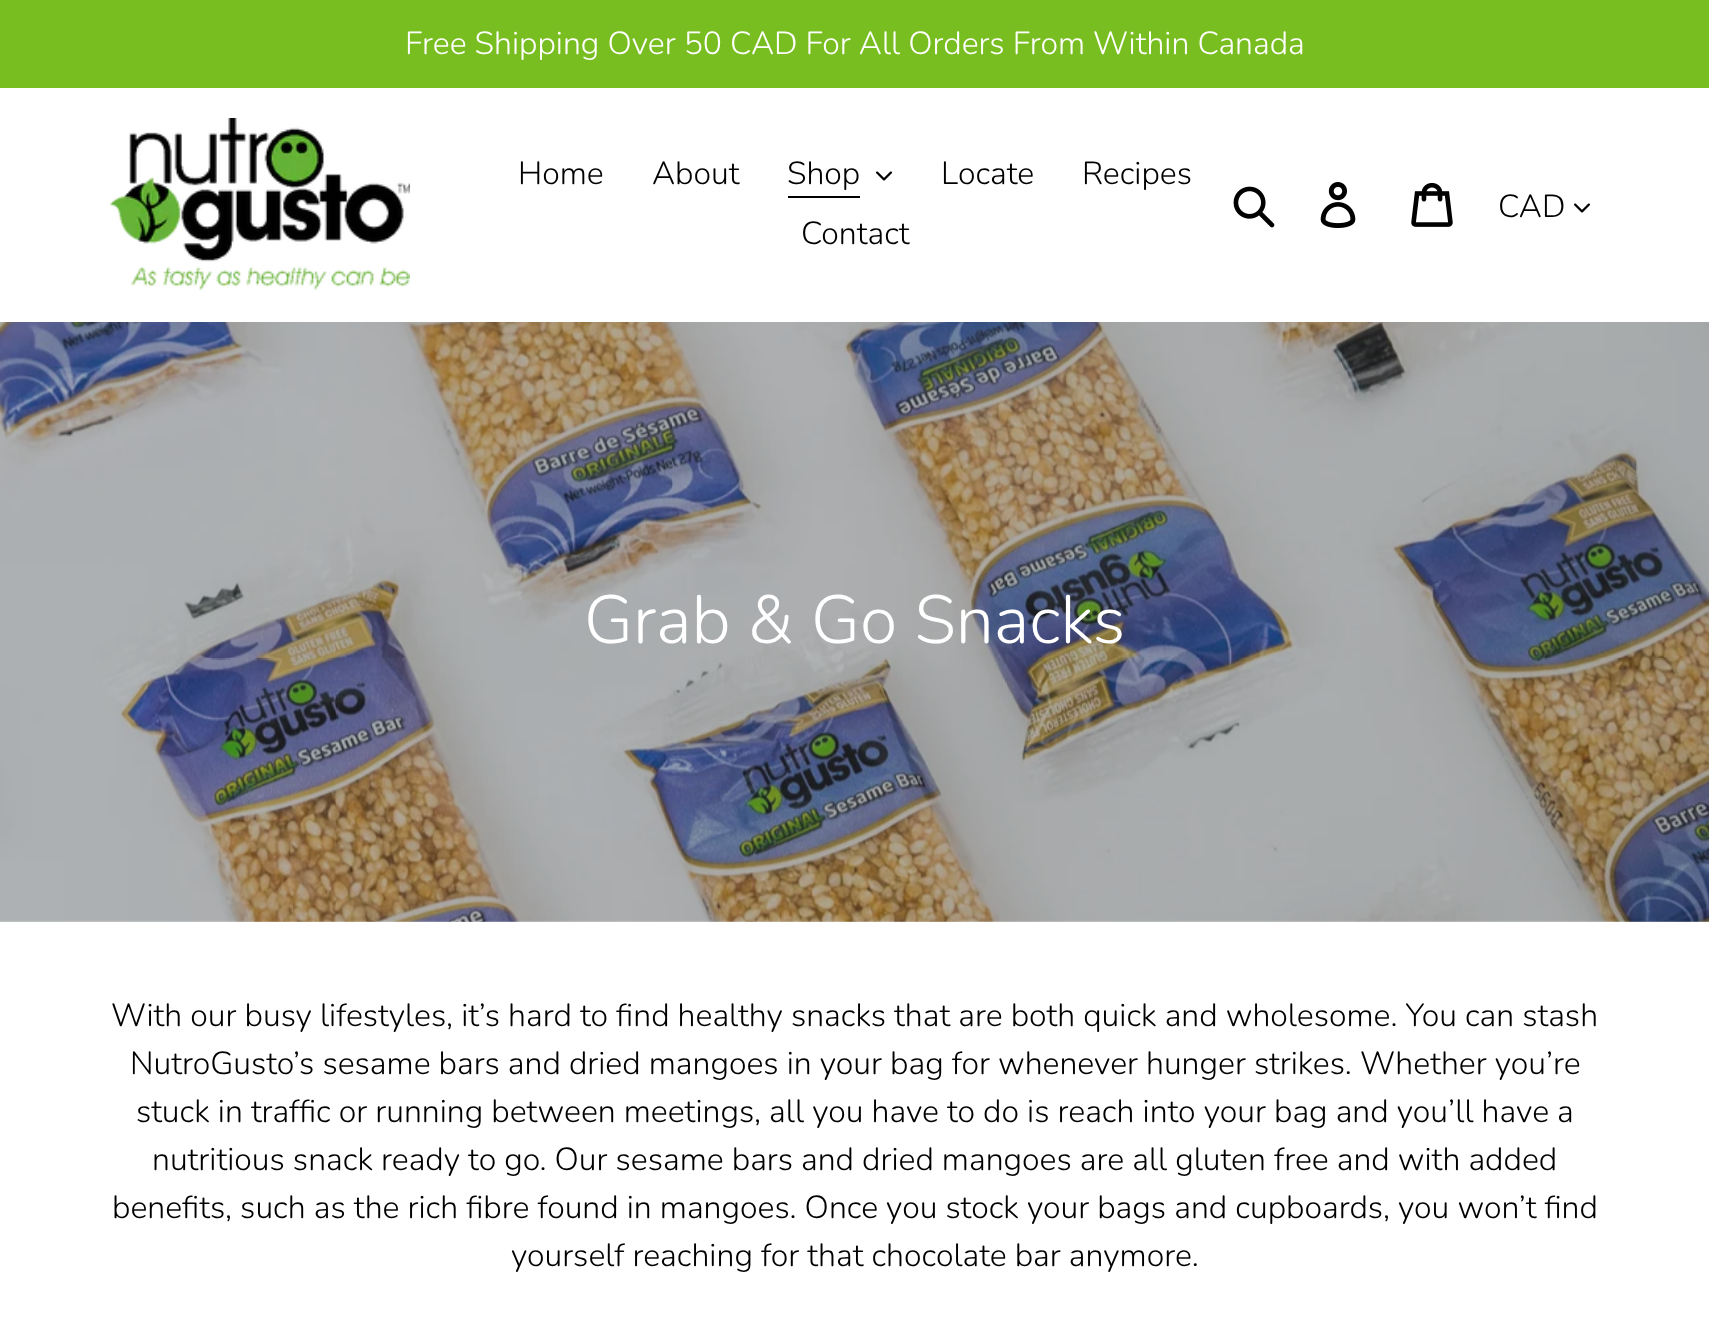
<!DOCTYPE html>
<meta charset="utf-8">
<style>body { margin: 0 } canvas { display: block }</style>
<canvas id="canvas" width="1709" height="1329"></canvas>
<img id="img1" src="images/1.png" hidden>
<img id="img2" src="images/2.png" hidden>
<img id="img3" src="images/3.png" hidden>
<img id="img4" src="images/4.png" hidden>
<img id="img5" src="images/5.png" hidden>
<img id="img6" src="images/6.png" hidden>
<script>
window.onload = function () {
    const canvas = document.getElementById('canvas');
    const context = canvas.getContext('2d');
    context.miterLimit = 4;
    context.fontKerning = 'normal';

    context.fillStyle = 'rgb(255, 255, 255)';
    context.fillRect(0, 0, 1709, 1329);
    context.fillStyle = 'rgb(120, 190, 32)';
    context.fillRect(0, 0, 1709, 88);
    context.drawImage(document.getElementById('img1'), 110, 118, 300, 172);
    context.fillStyle = 'rgb(0, 0, 0)';
    context.fillRect(788, 196, 72, 2);
    context.drawImage(document.getElementById('img2'), 876, 171, 16, 10);
    context.drawImage(document.getElementById('img3'), 1233, 186, 42, 42);
    context.drawImage(document.getElementById('img4'), 1320, 182, 36, 46);
    context.drawImage(document.getElementById('img5'), 1411, 182, 42, 45);
    context.drawImage(document.getElementById('img2'), 1574, 203, 16, 10);
    context.drawImage(document.getElementById('img6'), 0, 322, 1709, 600);
    context.font = '300 32px Nunito';
    context.fillStyle = 'rgb(255, 255, 255)';
    context.fillText('Free Shipping Over 50 CAD For All Orders From Within Canada', 405, 54);
    context.fillStyle = 'rgb(0, 0, 0)';
    context.fillText('Home', 518, 184);
    context.fillText('About', 652, 184);
    context.fillText('Shop', 787, 184);
    context.fillText('Locate', 941, 184);
    context.fillText('Recipes', 1082, 184);
    context.fillText('Contact', 801, 244);
    context.fillText('CAD', 1498, 217);
    context.font = '300 68px Nunito';
    context.fillStyle = 'rgb(255, 255, 255)';
    context.fillText('Grab & Go Snacks', 584, 643);
    context.font = '300 32px Nunito';
    context.fillStyle = 'rgb(0, 0, 0)';
    context.fillText('With our busy lifestyles, it’s hard to find healthy snacks that are both quick and wholesome. You can stash', 111, 1026);
    context.fillText('NutroGusto’s sesame bars and dried mangoes in your bag for whenever hunger strikes. Whether you’re', 130, 1074);
    context.fillText('stuck in traffic or running between meetings, all you have to do is reach into your bag and you’ll have a', 136, 1122);
    context.fillText('nutritious snack ready to go. Our sesame bars and dried mangoes are all gluten free and with added', 152, 1170);
    context.fillText('benefits, such as the rich fibre found in mangoes. Once you stock your bags and cupboards, you won’t find', 112, 1218);
    context.fillText('yourself reaching for that chocolate bar anymore.', 511, 1266);
};
</script>
